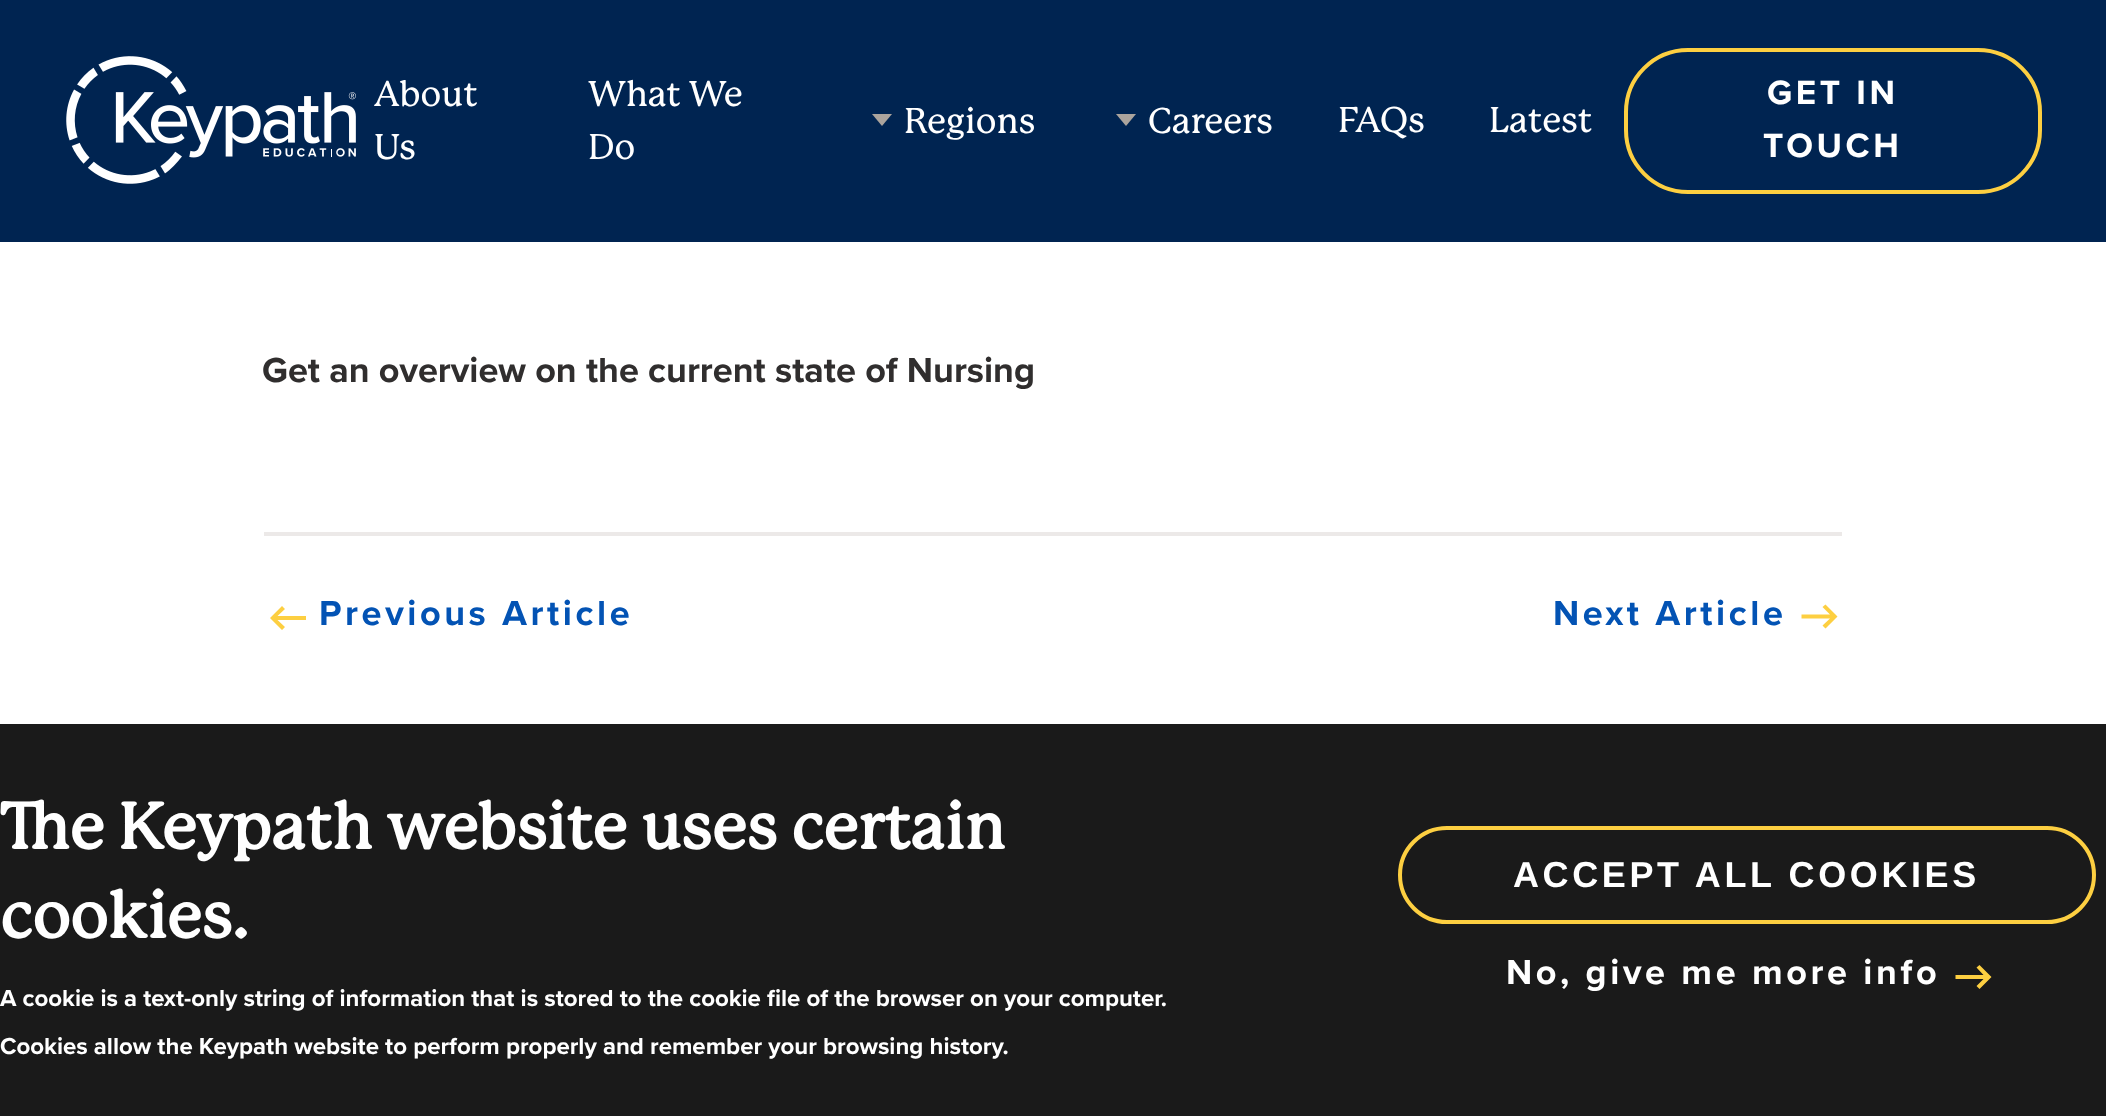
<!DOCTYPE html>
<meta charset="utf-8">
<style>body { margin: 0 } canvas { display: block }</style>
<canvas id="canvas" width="2106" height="1116"></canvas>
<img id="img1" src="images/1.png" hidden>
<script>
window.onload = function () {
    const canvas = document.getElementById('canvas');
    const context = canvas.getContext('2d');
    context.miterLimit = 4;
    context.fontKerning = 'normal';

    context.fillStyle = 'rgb(255, 255, 255)';
    context.fillRect(0, 0, 2106, 1116);
    context.fillStyle = 'rgb(0, 36, 81)';
    context.fillRect(0, 0, 2106, 242);
    context.drawImage(document.getElementById('img1'), 66, 56, 290, 128);
    context.fillStyle = 'rgb(171, 164, 157)';
    context.beginPath();
    context.moveTo(872, 114);
    context.lineTo(892, 114);
    context.lineTo(882, 126);
    context.closePath();
    context.fill();
    context.beginPath();
    context.moveTo(1116, 114);
    context.lineTo(1136, 114);
    context.lineTo(1126, 126);
    context.closePath();
    context.fill();
    context.beginPath();
    context.roundRect(1626, 50, 414, 142, 62);
    context.strokeStyle = 'rgb(253, 207, 65)';
    context.lineWidth = 4;
    context.stroke();
    context.fillStyle = 'rgb(236, 233, 232)';
    context.fillRect(264, 532, 1578, 4);
    context.fillStyle = 'rgb(253, 207, 65)';
    context.beginPath();
    context.moveTo(306, 616);
    context.lineTo(306, 620);
    context.lineTo(277.5, 620);
    context.lineTo(285, 627);
    context.lineTo(282, 630);
    context.lineTo(270, 618);
    context.lineTo(282, 606);
    context.lineTo(285, 609);
    context.lineTo(277.5, 616);
    context.closePath();
    context.fill();
    context.beginPath();
    context.moveTo(1801.5, 618.5);
    context.lineTo(1801.5, 614.5);
    context.lineTo(1830, 614.5);
    context.lineTo(1822.5, 607);
    context.lineTo(1825.5, 604.5);
    context.lineTo(1837.5, 616.5);
    context.lineTo(1825.5, 628.5);
    context.lineTo(1822.5, 625.5);
    context.lineTo(1830, 618.5);
    context.closePath();
    context.fill();
    context.fillStyle = 'rgb(26, 26, 26)';
    context.fillRect(0, 724, 2106, 392);
    context.beginPath();
    context.roundRect(1400, 828, 694, 94, 47);
    context.stroke();
    context.fillStyle = 'rgb(253, 207, 65)';
    context.beginPath();
    context.moveTo(1955.5, 979);
    context.lineTo(1955.5, 975);
    context.lineTo(1983.5, 975);
    context.lineTo(1976.5, 967.5);
    context.lineTo(1979.5, 965);
    context.lineTo(1991.5, 977);
    context.lineTo(1979.5, 989);
    context.lineTo(1976.5, 986);
    context.lineTo(1983.5, 979);
    context.closePath();
    context.fill();
    context.font = '500 35px "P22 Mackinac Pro"';
    context.fillStyle = 'rgb(255, 255, 255)';
    context.fillText('About', 374, 106);
    context.fillText('Us', 374, 159);
    context.fillText('What We', 588, 106);
    context.fillText('Do', 588, 159);
    context.fillText('Regions', 904, 133);
    context.fillText('Careers', 1148, 133);
    context.fillText('FAQs', 1338, 132);
    context.fillText('Latest', 1489, 132);
    context.letterSpacing = '3.6px';
    context.font = 'bold 35px Proxima Nova';
    context.fillText('GET IN', 1767, 104);
    context.fillText('TOUCH', 1763, 157);
    context.letterSpacing = '0px';
    context.font = 'bold 36px Proxima Nova';
    context.fillStyle = 'rgb(48, 46, 46)';
    context.fillText('Get an overview on the current state of Nursing', 262, 382);
    context.letterSpacing = '3.6px';
    context.fillStyle = 'rgb(3, 83, 180)';
    context.fillText('Previous Article', 319, 625);
    context.fillText('Next Article', 1553, 625);
    context.letterSpacing = '0px';
    context.font = 'bold 64px "P22 Mackinac Pro"';
    context.fillStyle = 'rgb(255, 255, 255)';
    context.fillText('The Keypath website uses certain', 0, 849);
    context.fillText('cookies.', 0, 938);
    context.font = 'bold 24px Proxima Nova';
    context.fillText('A cookie is a text-only string of information that is stored to the cookie file of the browser on your computer.', 0, 1006);
    context.fillText('Cookies allow the Keypath website to perform properly and remember your browsing history.', 0, 1054);
    context.letterSpacing = '3.6px';
    context.font = 'bold 36px Liberation Sans';
    context.fillText('ACCEPT ALL COOKIES', 1513, 887);
    context.font = 'bold 36px Proxima Nova';
    context.fillText('No, give me more info', 1506, 984);
};
</script>
